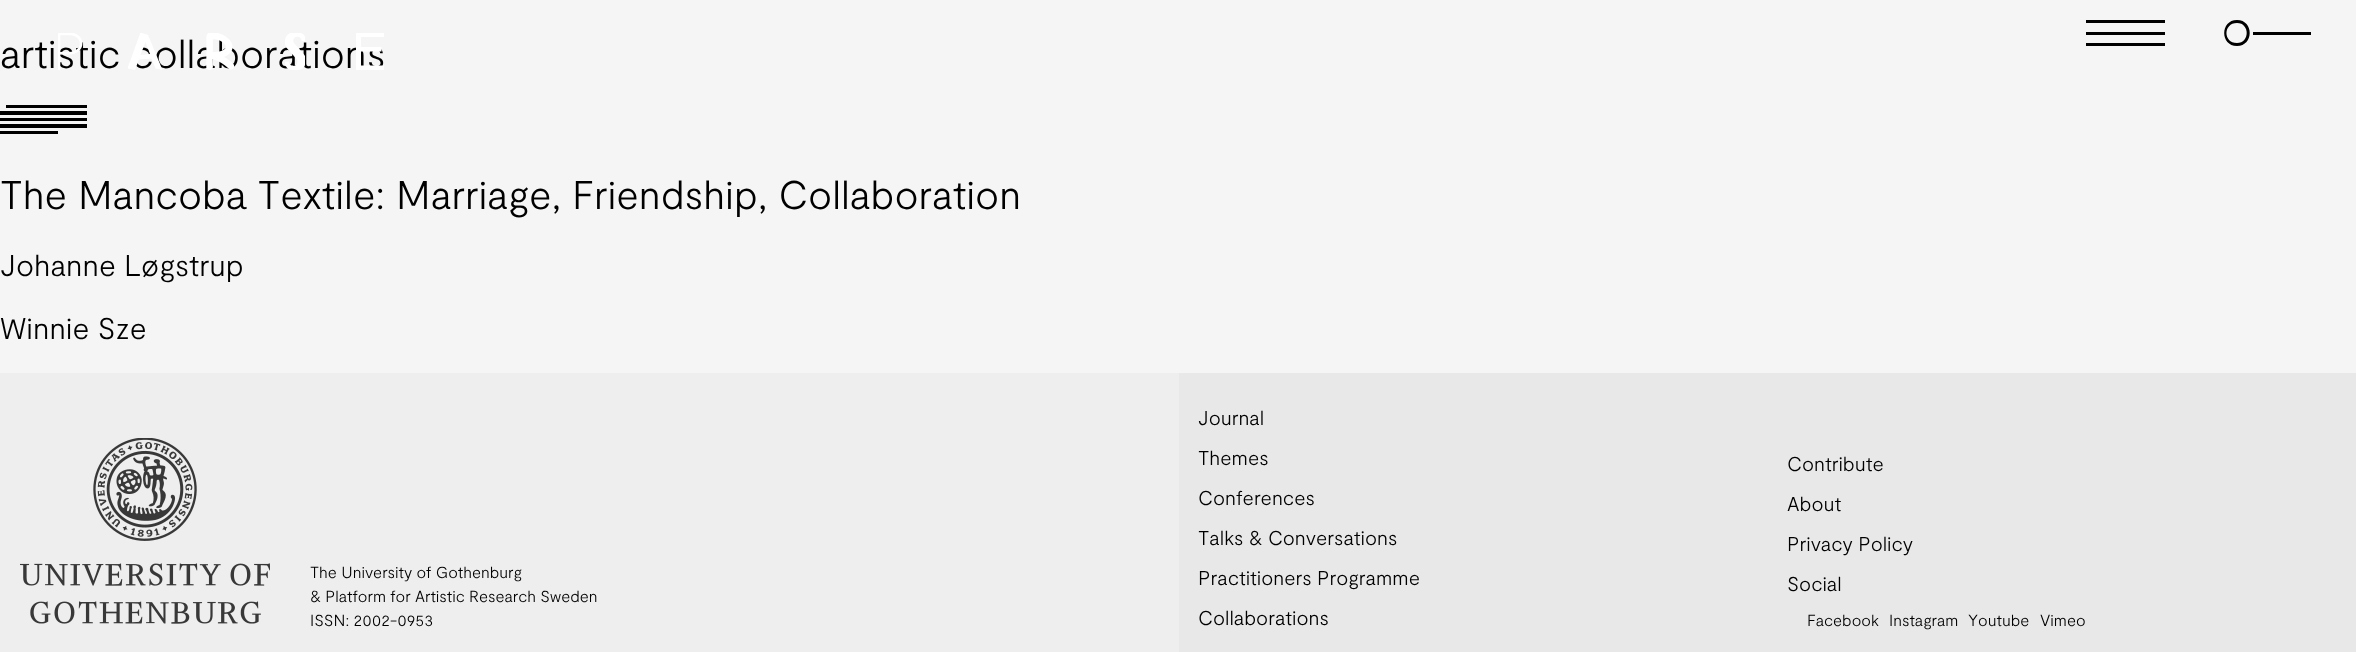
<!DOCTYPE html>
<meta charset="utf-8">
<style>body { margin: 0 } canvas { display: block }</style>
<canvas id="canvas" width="2356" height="652"></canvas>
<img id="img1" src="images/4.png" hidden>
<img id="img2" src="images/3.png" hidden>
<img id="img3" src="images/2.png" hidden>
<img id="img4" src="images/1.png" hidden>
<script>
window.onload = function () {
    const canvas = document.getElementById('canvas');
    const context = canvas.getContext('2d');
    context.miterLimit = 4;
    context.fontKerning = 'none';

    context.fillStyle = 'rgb(245, 245, 245)';
    context.fillRect(0, 0, 2356, 652);
    context.fillStyle = 'rgb(0, 0, 0)';
    context.beginPath();
    context.moveTo(2086, 20);
    context.lineTo(2165, 20);
    context.lineTo(2165, 23);
    context.lineTo(2086, 23);
    context.closePath();
    context.moveTo(2086, 32);
    context.lineTo(2165, 32);
    context.lineTo(2165, 35);
    context.lineTo(2086, 35);
    context.closePath();
    context.moveTo(2086, 43);
    context.lineTo(2165, 43);
    context.lineTo(2165, 46);
    context.lineTo(2086, 46);
    context.closePath();
    context.fill();
    context.beginPath();
    context.moveTo(2253, 32);
    context.lineTo(2311, 32);
    context.lineTo(2311, 35);
    context.lineTo(2253, 35);
    context.closePath();
    context.moveTo(2237, 20);
    context.bezierCurveTo(2220, 20, 2220, 46, 2237, 46);
    context.bezierCurveTo(2254, 46, 2254, 20, 2237, 20);
    context.closePath();
    context.moveTo(2237, 43);
    context.bezierCurveTo(2223, 43, 2223, 23, 2237, 23);
    context.bezierCurveTo(2250, 23, 2250, 43, 2237, 43);
    context.closePath();
    context.fill();
    context.beginPath();
    context.moveTo(6, 105);
    context.lineTo(87, 105);
    context.lineTo(87, 108);
    context.lineTo(6, 108);
    context.closePath();
    context.moveTo(0, 124);
    context.lineTo(87, 124);
    context.lineTo(87, 128);
    context.lineTo(0, 128);
    context.closePath();
    context.moveTo(0, 118);
    context.lineTo(87, 118);
    context.lineTo(87, 121);
    context.lineTo(0, 121);
    context.closePath();
    context.moveTo(0, 111);
    context.lineTo(87, 111);
    context.lineTo(87, 115);
    context.lineTo(0, 115);
    context.closePath();
    context.moveTo(0, 131);
    context.lineTo(58, 131);
    context.lineTo(58, 134);
    context.lineTo(0, 134);
    context.closePath();
    context.fill();
    context.fillStyle = 'rgb(232, 232, 232)';
    context.fillRect(1179, 373, 1177, 279);
    context.fillStyle = 'rgb(238, 238, 238)';
    context.fillRect(0, 373, 1179, 279);
    context.drawImage(document.getElementById('img1'), 20, 438, 250, 186);
    context.font = '300 40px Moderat';
    context.fillStyle = 'rgb(0, 0, 0)';
    context.fillText('artistic collaborations', 0, 68);
    context.save();
    context.beginPath();
    context.rect(356, 33, 28, 37);
    context.clip();
    context.fillStyle = 'rgb(255, 255, 255)';
    context.beginPath();
    context.moveTo(356, 32.5);
    context.lineTo(384, 32.5);
    context.lineTo(384, 37);
    context.lineTo(361, 37);
    context.lineTo(361, 47);
    context.lineTo(381.5, 47);
    context.lineTo(381.5, 51.5);
    context.lineTo(361, 51.5);
    context.lineTo(361, 65.5);
    context.lineTo(385, 65.5);
    context.lineTo(385, 70);
    context.lineTo(356, 70);
    context.closePath();
    context.fill();
    context.restore();
    context.drawImage(document.getElementById('img2'), 285, 33, 20, 37);
    context.drawImage(document.getElementById('img3'), 206, 33, 28, 37);
    context.save();
    context.beginPath();
    context.rect(128, 33, 35, 37);
    context.clip();
    context.fillStyle = 'rgb(255, 255, 255)';
    context.beginPath();
    context.moveTo(148, 35);
    context.lineTo(162.5, 70);
    context.lineTo(155.5, 68.5);
    context.lineTo(151.5, 58.5);
    context.lineTo(139, 59.5);
    context.lineTo(135, 70);
    context.lineTo(127.5, 68.5);
    context.lineTo(140.5, 32.5);
    context.closePath();
    context.moveTo(145.5, 42);
    context.lineTo(140.5, 55);
    context.lineTo(150, 54);
    context.closePath();
    context.fill();
    context.restore();
    context.drawImage(document.getElementById('img4'), 58, 33, 25, 37);
    context.fillText('The Mancoba Textile:', 0, 209);
    context.fillText('Marriage, Friendship, Collaboration', 396, 209);
    context.font = '300 30px Moderat';
    context.fillText('Johanne Løgstrup', 0, 276);
    context.fillText('Winnie Sze', 0, 339);
    context.font = '300 16px Moderat';
    context.fillText('The University of Gothenburg', 310, 578);
    context.fillText('& Platform for Artistic Research Sweden', 310, 602);
    context.fillText('ISSN: 2002-0953', 310, 626);
    context.font = '300 20px Moderat';
    context.fillText('Journal', 1198, 425);
    context.fillText('Themes', 1198, 465);
    context.fillText('Conferences', 1198, 505);
    context.fillText('Talks & Conversations', 1198, 545);
    context.fillText('Practitioners Programme', 1198, 585);
    context.fillText('Collaborations', 1198, 625);
    context.fillText('Contribute', 1787, 471);
    context.fillText('About', 1787, 511);
    context.fillText('Privacy Policy', 1787, 551);
    context.fillText('Social', 1787, 591);
    context.font = '300 16px Moderat';
    context.fillText('Facebook', 1807, 626);
    context.fillText('Instagram', 1889, 626);
    context.fillText('Youtube', 1968, 626);
    context.fillText('Vimeo', 2040, 626);
};
</script>
